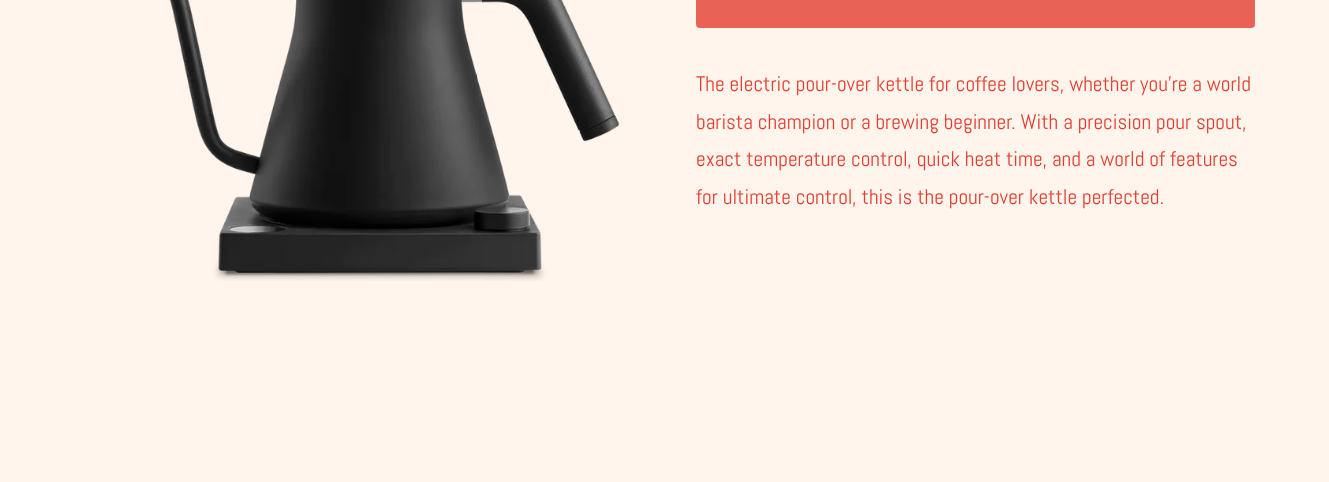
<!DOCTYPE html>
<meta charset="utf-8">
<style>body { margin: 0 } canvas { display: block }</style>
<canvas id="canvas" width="1329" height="482"></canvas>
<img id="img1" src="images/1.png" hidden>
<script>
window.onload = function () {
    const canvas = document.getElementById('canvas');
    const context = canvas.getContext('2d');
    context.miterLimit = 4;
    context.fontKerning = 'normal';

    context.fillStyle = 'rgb(255, 245, 236)';
    context.fillRect(0, 0, 1329, 482);
    context.drawImage(document.getElementById('img1'), 169, 0, 451, 281);
    context.fillStyle = 'rgb(233, 98, 86)';
    context.beginPath();
    context.roundRect(696, -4, 559, 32, 4);
    context.fill();
    context.font = '21.25px Abel';
    context.fillStyle = 'rgb(228, 61, 48)';
    context.fillText('The electric pour-over kettle for coffee lovers, whether you\'re a world', 696, 91);
    context.fillText('barista champion or a brewing beginner. With a precision pour spout,', 696, 129);
    context.fillText('exact temperature control, quick heat time, and a world of features', 696, 166);
    context.fillText('for ultimate control, this is the pour-over kettle perfected.', 696, 204);
};
</script>
